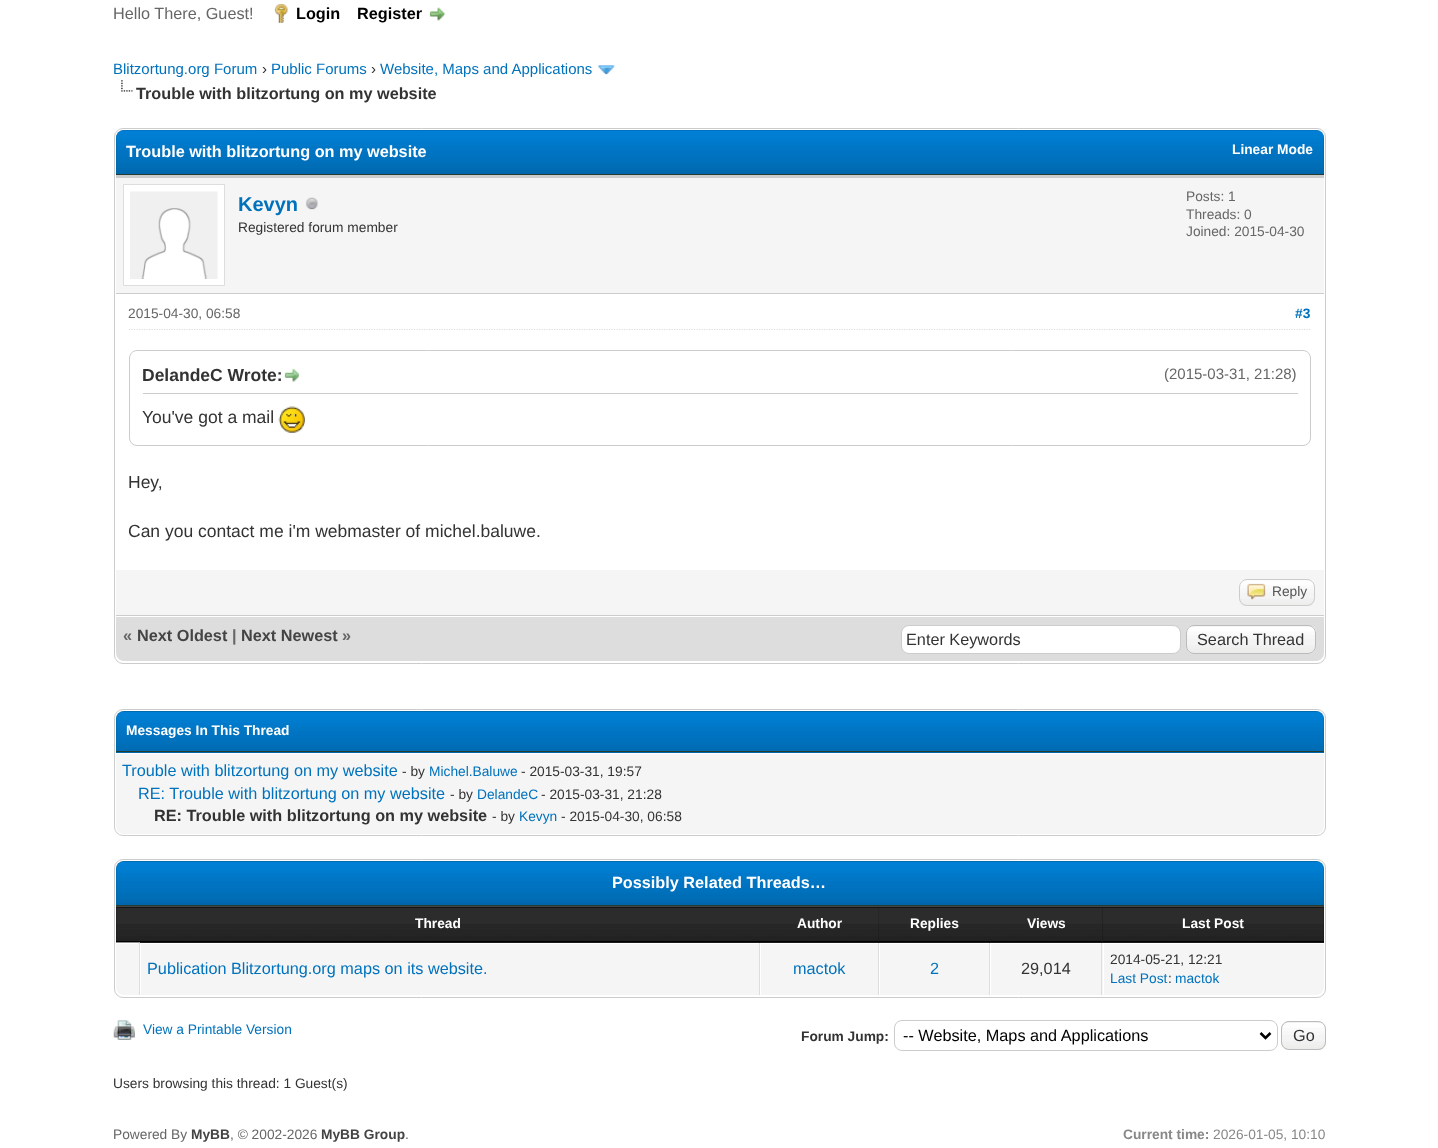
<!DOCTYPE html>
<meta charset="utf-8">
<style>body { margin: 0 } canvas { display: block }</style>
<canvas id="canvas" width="1438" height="1148"></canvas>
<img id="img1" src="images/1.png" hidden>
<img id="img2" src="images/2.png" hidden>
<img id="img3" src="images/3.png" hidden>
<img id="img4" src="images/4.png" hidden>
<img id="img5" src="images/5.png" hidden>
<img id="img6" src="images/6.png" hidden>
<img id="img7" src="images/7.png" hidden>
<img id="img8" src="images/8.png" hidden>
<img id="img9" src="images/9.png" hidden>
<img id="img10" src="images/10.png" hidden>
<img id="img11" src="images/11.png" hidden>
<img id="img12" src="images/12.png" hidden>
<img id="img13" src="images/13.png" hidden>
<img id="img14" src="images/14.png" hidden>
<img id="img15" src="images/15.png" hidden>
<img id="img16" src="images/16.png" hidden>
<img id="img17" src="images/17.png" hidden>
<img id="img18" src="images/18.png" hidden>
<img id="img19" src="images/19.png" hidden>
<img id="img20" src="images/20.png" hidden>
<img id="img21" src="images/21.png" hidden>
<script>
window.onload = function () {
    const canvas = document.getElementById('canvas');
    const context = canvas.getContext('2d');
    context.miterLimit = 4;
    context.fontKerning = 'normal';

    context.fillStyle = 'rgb(255, 255, 255)';
    context.fillRect(0, 0, 1438, 1148);
    context.drawImage(document.getElementById('img1'), 274, 4, 14, 19);
    context.drawImage(document.getElementById('img2'), 429, 7, 17, 14);
    context.drawImage(document.getElementById('img3'), 597, 65, 18, 10);
    context.drawImage(document.getElementById('img4'), 121, 80, 12, 12);
    context.beginPath();
    context.roundRect(114.5, 128.5, 1211, 535, 8.5);
    context.strokeStyle = 'rgb(204, 204, 204)';
    context.stroke();
    context.fillStyle = 'rgb(0, 102, 162)';
    context.beginPath();
    context.roundRect(116, 130, 1208, 45, [8, 8, 0, 0]);
    context.fill();
    context.drawImage(document.getElementById('img5'), 116, 130, 1208, 44);
    context.fillStyle = 'rgb(38, 60, 48)';
    context.fillRect(116, 174, 1208, 1);
    context.fillStyle = 'rgb(245, 245, 245)';
    context.fillRect(116, 178, 1208, 115);
    context.fillStyle = 'rgb(204, 204, 204)';
    context.fillRect(116, 175, 1208, 3);
    context.fillRect(116, 293, 1208, 1);
    context.fillStyle = 'rgb(255, 255, 255)';
    context.beginPath();
    context.rect(123.5, 184.5, 101, 101);
    context.fill();
    context.strokeStyle = 'rgb(221, 221, 221)';
    context.stroke();
    context.drawImage(document.getElementById('img6'), 130, 191, 88, 88);
    context.drawImage(document.getElementById('img7'), 306, 197, 12, 13);
    context.beginPath();
    context.moveTo(129, 329.5);
    context.lineTo(1311, 329.5);
    context.lineWidth = 1.2;
    context.setLineDash([1.25, 1.25]);
    context.stroke();
    context.beginPath();
    context.roundRect(129.5, 350.5, 1181, 95, 7.5);
    context.strokeStyle = 'rgb(204, 204, 204)';
    context.lineWidth = 1;
    context.setLineDash([]);
    context.stroke();
    context.fillStyle = 'rgb(204, 204, 204)';
    context.fillRect(143, 393, 1155, 1);
    context.drawImage(document.getElementById('img8'), 284, 368, 15, 14);
    context.drawImage(document.getElementById('img9'), 278, 406, 27, 27);
    context.fillStyle = 'rgb(245, 245, 245)';
    context.fillRect(116, 570, 1208, 45);
    context.fillStyle = 'rgb(204, 204, 204)';
    context.fillRect(116, 615, 1208, 1);
    context.drawImage(document.getElementById('img10'), 1239, 580, 76, 26);
    context.beginPath();
    context.roundRect(1239.5, 579.5, 75, 26, 7.5);
    context.stroke();
    context.drawImage(document.getElementById('img11'), 1247, 583, 19, 17);
    context.fillStyle = 'rgb(221, 221, 221)';
    context.beginPath();
    context.roundRect(116, 616, 1208, 45, [0, 0, 8, 8]);
    context.fill();
    context.fillStyle = 'rgb(255, 255, 255)';
    context.fillRect(116, 616, 1208, 1);
    context.beginPath();
    context.roundRect(901.5, 625.5, 279, 28, 7.5);
    context.fill();
    context.stroke();
    context.fillStyle = 'rgb(238, 238, 238)';
    context.beginPath();
    context.roundRect(1186, 625, 130, 29, 8);
    context.fill();
    context.drawImage(document.getElementById('img12'), 1186, 626, 130, 28);
    context.beginPath();
    context.roundRect(1186.5, 625.5, 129, 28, 7.5);
    context.strokeStyle = 'rgb(187, 187, 187)';
    context.stroke();
    context.beginPath();
    context.roundRect(114.5, 709.5, 1211, 126, 8.5);
    context.strokeStyle = 'rgb(204, 204, 204)';
    context.stroke();
    context.fillStyle = 'rgb(0, 102, 162)';
    context.beginPath();
    context.roundRect(116, 711, 1208, 42, [8, 8, 0, 0]);
    context.fill();
    context.drawImage(document.getElementById('img13'), 116, 711, 1208, 42);
    context.fillStyle = 'rgb(38, 60, 48)';
    context.fillRect(116, 751, 1208, 1);
    context.fillStyle = 'rgb(245, 245, 245)';
    context.beginPath();
    context.roundRect(116, 753, 1208, 81, [0, 0, 8, 8]);
    context.fill();
    context.fillStyle = 'rgb(255, 255, 255)';
    context.fillRect(116, 753, 1208, 1);
    context.beginPath();
    context.roundRect(114.5, 859.5, 1211, 138, 8.5);
    context.stroke();
    context.fillStyle = 'rgb(0, 102, 162)';
    context.beginPath();
    context.roundRect(116, 861, 1208, 45, [8, 8, 0, 0]);
    context.fill();
    context.drawImage(document.getElementById('img14'), 116, 861, 1208, 44);
    context.fillStyle = 'rgb(38, 60, 48)';
    context.fillRect(116, 905, 1208, 1);
    context.fillStyle = 'rgb(15, 15, 15)';
    context.fillRect(116, 907, 1208, 36);
    context.drawImage(document.getElementById('img15'), 116, 907, 644, 36);
    context.fillStyle = 'rgb(68, 68, 68)';
    context.fillRect(116, 906, 1208, 1);
    context.fillStyle = 'rgb(0, 0, 0)';
    context.fillRect(116, 941, 644, 1);
    context.drawImage(document.getElementById('img16'), 760, 907, 119, 36);
    context.fillRect(760, 941, 119, 1);
    context.drawImage(document.getElementById('img17'), 878, 907, 112, 36);
    context.fillRect(879, 941, 111, 1);
    context.drawImage(document.getElementById('img18'), 990, 907, 113, 36);
    context.fillRect(990, 941, 113, 1);
    context.drawImage(document.getElementById('img19'), 1102, 907, 222, 36);
    context.fillRect(1103, 941, 221, 1);
    context.fillStyle = 'rgb(245, 245, 245)';
    context.beginPath();
    context.roundRect(116, 943, 24, 52, [0, 0, 0, 8]);
    context.fill();
    context.fillStyle = 'rgb(255, 255, 255)';
    context.beginPath();
    context.moveTo(116, 942.5);
    context.lineTo(140, 942.5);
    context.lineTo(138.5, 944);
    context.lineTo(116, 944);
    context.closePath();
    context.fill();
    context.fillStyle = 'rgb(221, 221, 221)';
    context.beginPath();
    context.moveTo(140, 942);
    context.lineTo(138, 944);
    context.lineTo(139, 944);
    context.lineTo(139, 995);
    context.lineTo(140, 995);
    context.closePath();
    context.fill();
    context.fillStyle = 'rgb(245, 245, 245)';
    context.fillRect(141, 944, 618, 51);
    context.fillStyle = 'rgb(221, 221, 221)';
    context.fillRect(759, 943, 1, 52);
    context.fillStyle = 'rgb(245, 245, 245)';
    context.fillRect(761, 944, 117, 51);
    context.fillStyle = 'rgb(221, 221, 221)';
    context.fillRect(878, 943, 1, 52);
    context.fillStyle = 'rgb(245, 245, 245)';
    context.fillRect(880, 944, 109, 51);
    context.fillStyle = 'rgb(221, 221, 221)';
    context.fillRect(989, 943, 1, 52);
    context.fillStyle = 'rgb(245, 245, 245)';
    context.fillRect(991, 944, 112, 51);
    context.fillStyle = 'rgb(221, 221, 221)';
    context.fillRect(1101, 943, 1, 52);
    context.fillStyle = 'rgb(245, 245, 245)';
    context.beginPath();
    context.roundRect(1103, 943, 221, 52, [0, 0, 8, 0]);
    context.fill();
    context.fillStyle = 'rgb(255, 255, 255)';
    context.fillRect(1103, 943, 221, 1);
    context.fillRect(1103, 943, 1, 52);
    context.drawImage(document.getElementById('img20'), 113, 1020, 22, 20);
    context.beginPath();
    context.roundRect(894.5, 1020.5, 383, 30, 7.5);
    context.stroke();
    context.beginPath();
    context.moveTo(1260.5, 1033);
    context.lineTo(1265.5, 1038);
    context.lineTo(1270.5, 1033);
    context.strokeStyle = 'rgb(0, 0, 0)';
    context.lineWidth = 2.5;
    context.stroke();
    context.fillStyle = 'rgb(238, 238, 238)';
    context.beginPath();
    context.roundRect(1281, 1021, 45, 29, 8);
    context.fill();
    context.drawImage(document.getElementById('img21'), 1281, 1022, 45, 28);
    context.beginPath();
    context.roundRect(1281.5, 1021.5, 44, 28, 7.5);
    context.strokeStyle = 'rgb(187, 187, 187)';
    context.lineWidth = 1;
    context.stroke();
    context.font = '16.25px Liberation Sans';
    context.fillStyle = 'rgb(102, 102, 102)';
    context.fillText('Hello There, Guest!', 113, 19);
    context.font = 'bold 16.25px Liberation Sans';
    context.fillStyle = 'rgb(0, 0, 0)';
    context.fillText('Login', 296, 19);
    context.fillText('Register', 357, 19);
    context.font = '15px Liberation Sans';
    context.fillStyle = 'rgb(0, 114, 188)';
    context.fillText('Blitzortung.org Forum', 113, 74);
    context.fillStyle = 'rgb(51, 51, 51)';
    context.fillText('›', 262, 74);
    context.fillStyle = 'rgb(0, 114, 188)';
    context.fillText('Public Forums', 271, 74);
    context.fillStyle = 'rgb(51, 51, 51)';
    context.fillText('›', 371, 74);
    context.fillStyle = 'rgb(0, 114, 188)';
    context.fillText('Website, Maps and Applications', 380, 74);
    context.font = 'bold 16.25px Liberation Sans';
    context.fillStyle = 'rgb(51, 51, 51)';
    context.fillText('Trouble with blitzortung on my website', 136, 99);
    context.fillStyle = 'rgb(255, 255, 255)';
    context.fillText('Trouble with blitzortung on my website', 126, 157);
    context.font = 'bold 13.75px Liberation Sans';
    context.fillText('Linear Mode', 1232, 154);
    context.font = 'bold 20px Liberation Sans';
    context.fillStyle = 'rgb(0, 114, 188)';
    context.fillText('Kevyn', 238, 211);
    context.font = '13.75px Liberation Sans';
    context.fillStyle = 'rgb(51, 51, 51)';
    context.fillText('Registered forum member', 238, 232);
    context.fillStyle = 'rgb(102, 102, 102)';
    context.fillText('Posts: 1', 1186, 201);
    context.fillText('Threads: 0', 1186, 219);
    context.fillText('Joined: 2015-04-30', 1186, 236);
    context.fillText('2015-04-30, 06:58', 128, 318);
    context.font = 'bold 13.75px Liberation Sans';
    context.fillStyle = 'rgb(0, 114, 188)';
    context.fillText('#3', 1295, 318);
    context.font = 'bold 17.5px Liberation Sans';
    context.fillStyle = 'rgb(51, 51, 51)';
    context.fillText('DelandeC Wrote:', 142, 381);
    context.font = '15px Liberation Sans';
    context.fillStyle = 'rgb(102, 102, 102)';
    context.fillText('(2015-03-31, 21:28)', 1164, 379);
    context.font = '17.5px Liberation Sans';
    context.fillStyle = 'rgb(51, 51, 51)';
    context.fillText('You\'ve got a mail', 142, 423);
    context.fillText('Hey,', 128, 488);
    context.fillText('Can you contact me i\'m webmaster of michel.baluwe.', 128, 537);
    context.font = '13.75px Liberation Sans';
    context.fillStyle = 'rgb(85, 85, 85)';
    context.fillText('Reply', 1272, 596);
    context.font = 'bold 16.25px Liberation Sans';
    context.fillStyle = 'rgb(102, 102, 102)';
    context.fillText('«', 123, 641);
    context.fillStyle = 'rgb(68, 68, 68)';
    context.fillText('Next Oldest', 137, 641);
    context.fillStyle = 'rgb(102, 102, 102)';
    context.fillText('|', 232, 641);
    context.fillStyle = 'rgb(68, 68, 68)';
    context.fillText('Next Newest', 241, 641);
    context.fillStyle = 'rgb(102, 102, 102)';
    context.fillText('»', 342, 641);
    context.font = '16.25px Liberation Sans';
    context.fillStyle = 'rgb(51, 51, 51)';
    context.fillText('Enter Keywords', 906, 645);
    context.fillText('Search Thread', 1197, 645);
    context.font = 'bold 13.75px Liberation Sans';
    context.fillStyle = 'rgb(255, 255, 255)';
    context.fillText('Messages In This Thread', 126, 735);
    context.font = '16.25px Liberation Sans';
    context.fillStyle = 'rgb(0, 114, 188)';
    context.fillText('Trouble with blitzortung on my website', 122, 776);
    context.font = '13.75px Liberation Sans';
    context.fillStyle = 'rgb(51, 51, 51)';
    context.fillText('- by', 402, 776);
    context.fillStyle = 'rgb(0, 114, 188)';
    context.fillText('Michel.Baluwe', 429, 776);
    context.fillStyle = 'rgb(51, 51, 51)';
    context.fillText('- 2015-03-31, 19:57', 521, 776);
    context.font = '16.25px Liberation Sans';
    context.fillStyle = 'rgb(0, 114, 188)';
    context.fillText('RE: Trouble with blitzortung on my website', 138, 799);
    context.font = '13.75px Liberation Sans';
    context.fillStyle = 'rgb(51, 51, 51)';
    context.fillText('- by', 450, 799);
    context.fillStyle = 'rgb(0, 114, 188)';
    context.fillText('DelandeC', 477, 799);
    context.fillStyle = 'rgb(51, 51, 51)';
    context.fillText('- 2015-03-31, 21:28', 541, 799);
    context.font = 'bold 16.25px Liberation Sans';
    context.fillText('RE: Trouble with blitzortung on my website', 154, 821);
    context.font = '13.75px Liberation Sans';
    context.fillText('- by', 492, 821);
    context.fillStyle = 'rgb(0, 114, 188)';
    context.fillText('Kevyn', 519, 821);
    context.fillStyle = 'rgb(51, 51, 51)';
    context.fillText('- 2015-04-30, 06:58', 561, 821);
    context.font = 'bold 16.25px Liberation Sans';
    context.fillStyle = 'rgb(255, 255, 255)';
    context.fillText('Possibly Related Threads…', 612, 888);
    context.font = 'bold 13.75px Liberation Sans';
    context.fillText('Thread', 415, 928);
    context.fillText('Author', 797, 928);
    context.fillText('Replies', 910, 928);
    context.fillText('Views', 1027, 928);
    context.fillText('Last Post', 1182, 928);
    context.font = '16.25px Liberation Sans';
    context.fillStyle = 'rgb(0, 114, 188)';
    context.fillText('Publication Blitzortung.org maps on its website.', 147, 974);
    context.fillText('mactok', 793, 974);
    context.fillText('2', 930, 974);
    context.fillStyle = 'rgb(51, 51, 51)';
    context.fillText('29,014', 1021, 974);
    context.font = '13.75px Liberation Sans';
    context.fillText('2014-05-21, 12:21', 1110, 964);
    context.fillStyle = 'rgb(0, 114, 188)';
    context.fillText('Last Post', 1110, 983);
    context.fillStyle = 'rgb(51, 51, 51)';
    context.fillText(':', 1168, 983);
    context.fillStyle = 'rgb(0, 114, 188)';
    context.fillText('mactok', 1175, 983);
    context.fillText('View a Printable Version', 143, 1034);
    context.font = 'bold 13.75px Liberation Sans';
    context.fillStyle = 'rgb(51, 51, 51)';
    context.fillText('Forum Jump:', 801, 1041);
    context.font = '16.25px Liberation Sans';
    context.fillStyle = 'rgb(0, 0, 0)';
    context.fillText('-- Website, Maps and Applications', 903, 1041);
    context.fillStyle = 'rgb(51, 51, 51)';
    context.fillText('Go', 1293, 1041);
    context.font = '13.75px Liberation Sans';
    context.fillText('Users browsing this thread: 1 Guest(s)', 113, 1088);
    context.fillStyle = 'rgb(102, 102, 102)';
    context.fillText('Powered By', 113, 1139);
    context.font = 'bold 13.75px Liberation Sans';
    context.fillStyle = 'rgb(68, 68, 68)';
    context.fillText('MyBB', 191, 1139);
    context.font = '13.75px Liberation Sans';
    context.fillStyle = 'rgb(102, 102, 102)';
    context.fillText(', © 2002-2026', 230, 1139);
    context.font = 'bold 13.75px Liberation Sans';
    context.fillStyle = 'rgb(68, 68, 68)';
    context.fillText('MyBB Group', 321, 1139);
    context.font = '13.75px Liberation Sans';
    context.fillStyle = 'rgb(102, 102, 102)';
    context.fillText('.', 405, 1139);
    context.font = 'bold 13.75px Liberation Sans';
    context.fillStyle = 'rgb(136, 136, 136)';
    context.fillText('Current time:', 1123, 1139);
    context.font = '13.75px Liberation Sans';
    context.fillText('2026-01-05, 10:10', 1213, 1139);
};
</script>
